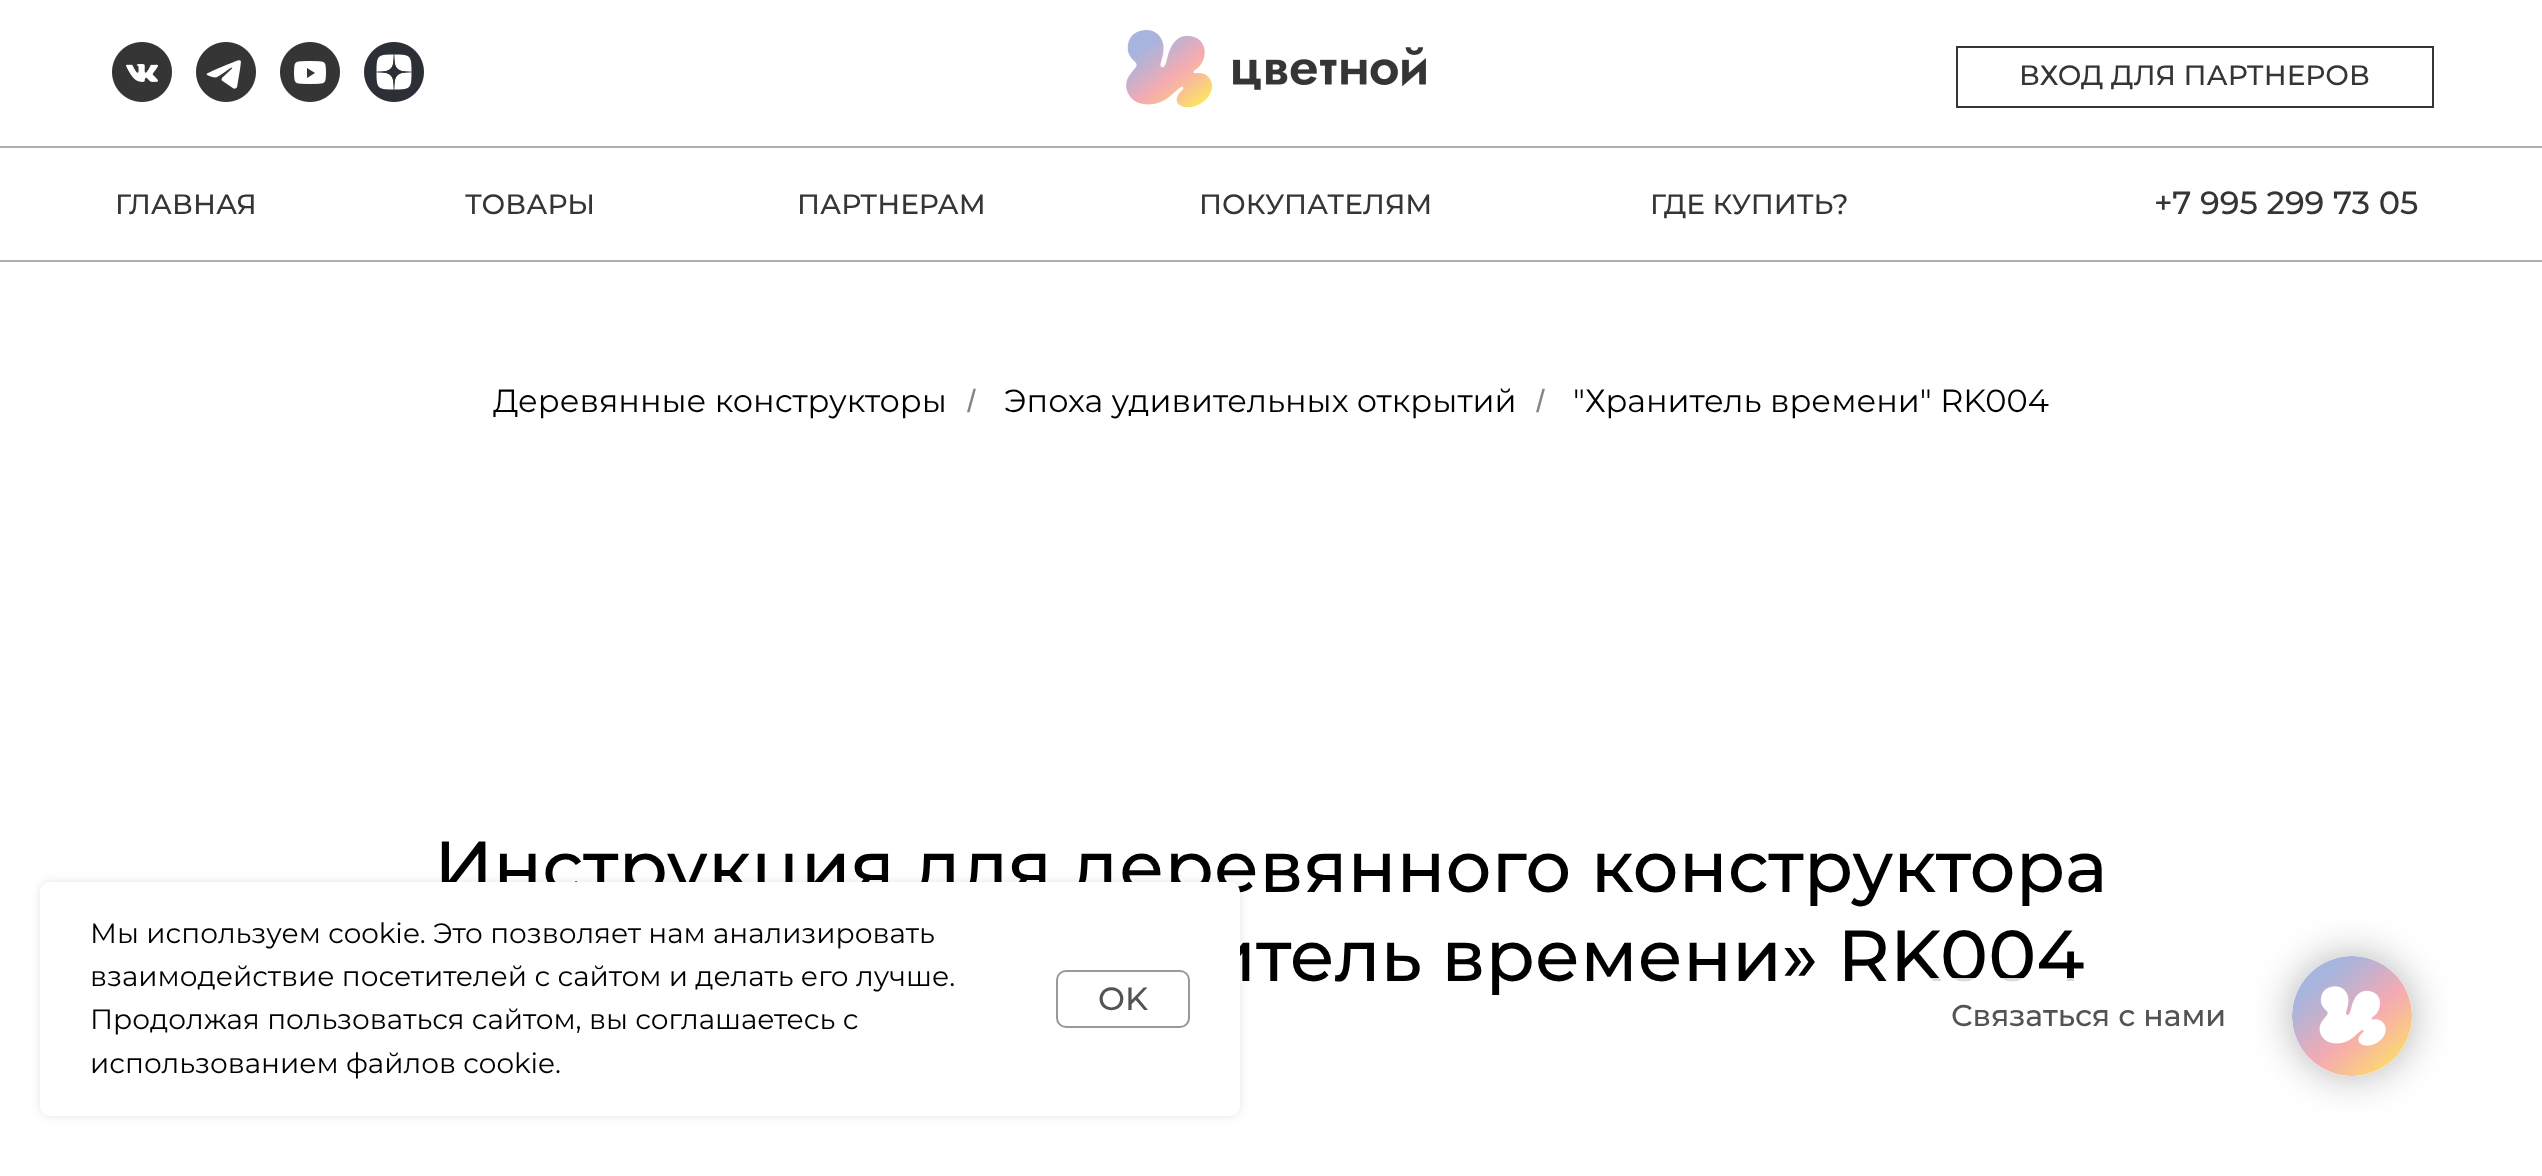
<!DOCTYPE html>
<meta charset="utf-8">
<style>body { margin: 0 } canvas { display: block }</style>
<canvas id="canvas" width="2542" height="1176"></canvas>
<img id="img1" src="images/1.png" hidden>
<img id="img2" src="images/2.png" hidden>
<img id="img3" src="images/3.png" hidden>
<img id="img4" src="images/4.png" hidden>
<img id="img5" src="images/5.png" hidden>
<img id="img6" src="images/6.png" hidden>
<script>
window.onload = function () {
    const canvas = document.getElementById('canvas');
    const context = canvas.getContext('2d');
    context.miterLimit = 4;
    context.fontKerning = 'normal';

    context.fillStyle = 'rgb(255, 255, 255)';
    context.fillRect(0, 0, 2542, 1176);
    context.drawImage(document.getElementById('img1'), 112, 42, 60, 60);
    context.drawImage(document.getElementById('img2'), 196, 42, 60, 60);
    context.drawImage(document.getElementById('img3'), 280, 42, 60, 60);
    context.drawImage(document.getElementById('img4'), 364, 42, 60, 60);
    context.drawImage(document.getElementById('img5'), 1126, 30, 300, 77);
    context.strokeStyle = 'rgb(53, 53, 53)';
    context.lineWidth = 2;
    context.strokeRect(1957, 47, 476, 60);
    context.fillStyle = 'rgb(174, 174, 174)';
    context.fillRect(0, 146, 2542, 2);
    context.fillRect(0, 260, 2542, 2);
    context.fillStyle = 'rgba(0, 0, 0, 0.1)';
    context.filter = 'blur(5px)';
    context.beginPath();
    context.roundRect(40, 882, 1200, 234, 10);
    context.fill();
    context.filter = 'none';
    context.font = '500 28px Montserrat';
    context.fillStyle = 'rgb(53, 53, 53)';
    context.fillText('ВХОД ДЛЯ ПАРТНЕРОВ', 2019, 85);
    context.fillText('ГЛАВНАЯ', 115, 214);
    context.fillText('ТОВАРЫ', 465, 214);
    context.fillText('ПАРТНЕРАМ', 797, 214);
    context.fillText('ПОКУПАТЕЛЯМ', 1199, 214);
    context.fillText('ГДЕ КУПИТЬ?', 1650, 214);
    context.font = '500 32px Montserrat';
    context.fillText('+7 995 299 73 05', 2154, 214);
    context.font = '32px Montserrat';
    context.fillStyle = 'rgb(0, 0, 0)';
    context.fillText('Деревянные конструкторы', 493, 412);
    context.font = '32px Liberation Sans';
    context.fillStyle = 'rgb(133, 133, 133)';
    context.fillText('/', 967, 412);
    context.font = '32px Montserrat';
    context.fillStyle = 'rgb(0, 0, 0)';
    context.fillText('Эпоха удивительных открытий', 1004, 412);
    context.font = '32px Liberation Sans';
    context.fillStyle = 'rgb(133, 133, 133)';
    context.fillText('/', 1536, 412);
    context.font = '32px Montserrat';
    context.fillStyle = 'rgb(0, 0, 0)';
    context.fillText('"Хранитель времени" RK004', 1573, 412);
    context.font = '500 72px Montserrat';
    context.fillText('Инструкция для деревянного конструктора', 434, 892);
    context.fillText('итель времени» RK004', 1206, 981);
    context.fillStyle = 'rgb(255, 255, 255)';
    context.beginPath();
    context.roundRect(40, 882, 1200, 234, 10);
    context.fill();
    context.beginPath();
    context.roundRect(1057, 971, 132, 56, 9);
    context.strokeStyle = 'rgb(153, 153, 153)';
    context.stroke();
    context.font = '500 32px Montserrat';
    context.fillStyle = 'rgb(83, 83, 83)';
    context.fillText('OK', 1098, 1010);
    context.font = '28px Montserrat';
    context.fillStyle = 'rgb(0, 0, 0)';
    context.fillText('использованием файлов cookie.', 90, 1073);
    context.fillText('Продолжая пользоваться сайтом, вы соглашаетесь с', 90, 1029);
    context.fillText('взаимодействие посетителей с сайтом и делать его лучше.', 90, 986);
    context.fillText('Мы используем cookie. Это позволяет нам анализировать', 90, 943);
    context.fillStyle = 'rgba(255, 255, 255, 0.85)';
    context.beginPath();
    context.roundRect(1924, 978, 328, 76, 6);
    context.fill();
    context.fillStyle = 'rgba(0, 0, 0, 0.3)';
    context.filter = 'blur(20px)';
    context.beginPath();
    context.roundRect(2292, 956, 120, 120, 60);
    context.fill();
    context.filter = 'none';
    context.fillStyle = 'rgb(255, 255, 255)';
    context.beginPath();
    context.arc(2352, 1016, 60, 0, 2 * Math.PI);
    context.fill();
    context.drawImage(document.getElementById('img6'), 2292, 956, 120, 120);
    context.font = '500 30px Montserrat';
    context.fillStyle = 'rgb(83, 83, 83)';
    context.fillText('Связаться с нами', 1951, 1026);
};
</script>
